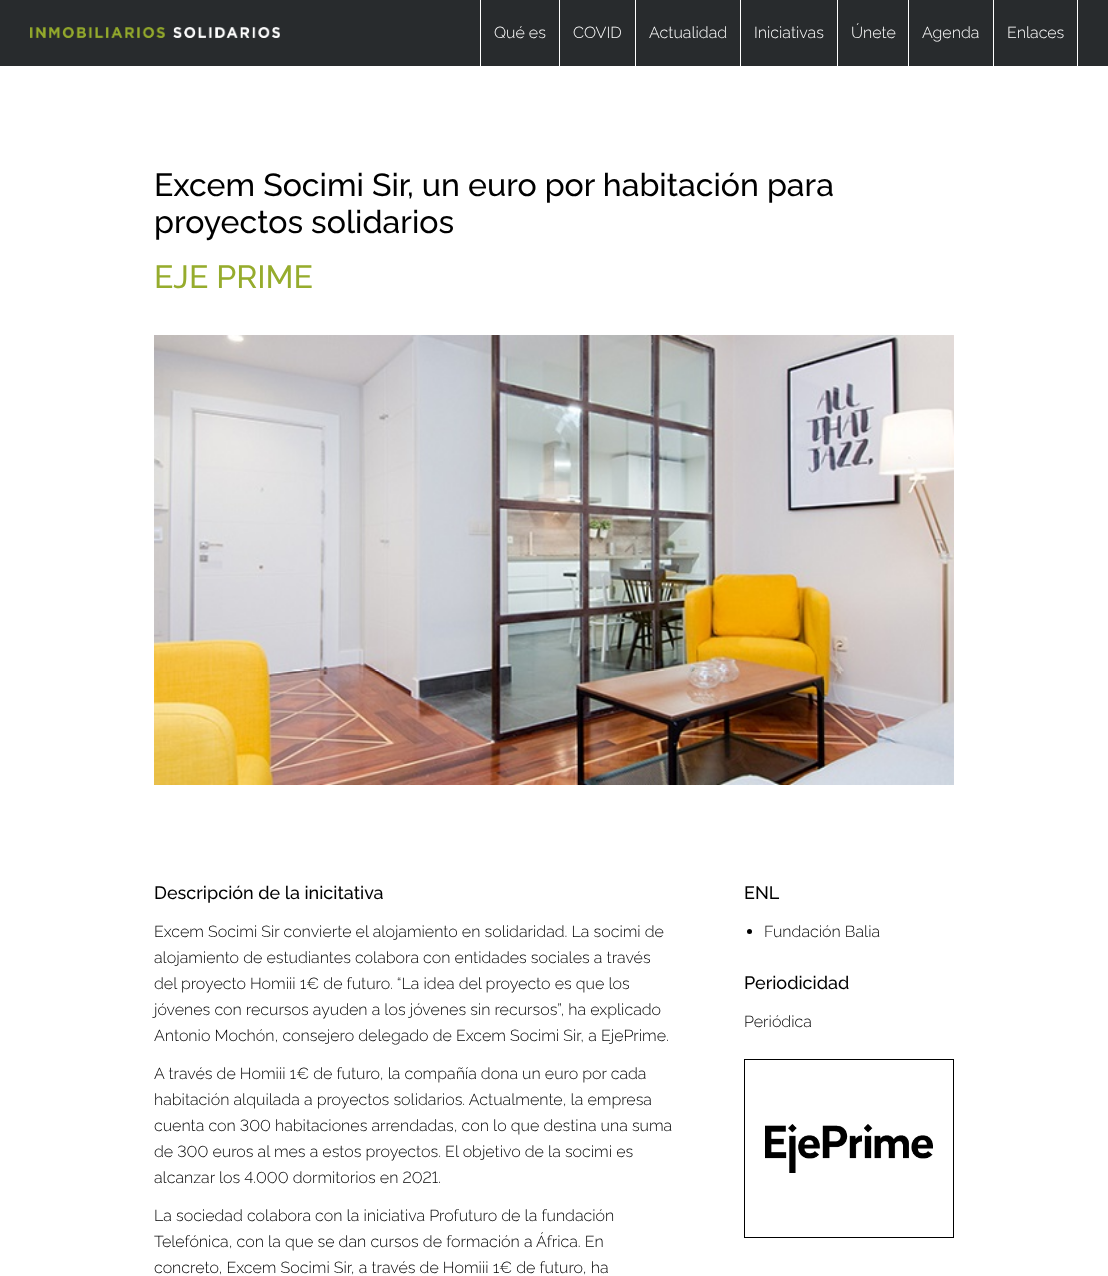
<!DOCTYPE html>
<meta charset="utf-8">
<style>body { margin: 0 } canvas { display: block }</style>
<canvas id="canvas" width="1108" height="1276"></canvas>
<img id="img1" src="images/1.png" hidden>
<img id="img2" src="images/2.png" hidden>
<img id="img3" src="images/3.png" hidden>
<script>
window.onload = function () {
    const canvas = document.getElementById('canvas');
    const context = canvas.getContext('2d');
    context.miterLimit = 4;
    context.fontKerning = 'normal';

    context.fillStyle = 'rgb(255, 255, 255)';
    context.fillRect(0, 0, 1108, 1276);
    context.fillStyle = 'rgb(40, 43, 45)';
    context.fillRect(0, 0, 1108, 66);
    context.drawImage(document.getElementById('img1'), 30, 27, 250, 11);
    context.fillStyle = 'rgb(255, 255, 255)';
    context.fillRect(480, 0, 1, 66);
    context.fillRect(559, 0, 1, 66);
    context.fillRect(635, 0, 1, 66);
    context.fillRect(740, 0, 1, 66);
    context.fillRect(837, 0, 1, 66);
    context.fillRect(908, 0, 1, 66);
    context.fillRect(1077, 0, 1, 66);
    context.fillRect(993, 0, 1, 66);
    context.drawImage(document.getElementById('img2'), 154, 335, 800, 450);
    context.fillStyle = 'rgb(0, 0, 0)';
    context.beginPath();
    context.arc(749.5, 931.5, 2.5, 0, 2 * Math.PI);
    context.fill();
    context.strokeStyle = 'rgb(0, 0, 0)';
    context.strokeRect(744.5, 1059.5, 209, 178);
    context.drawImage(document.getElementById('img3'), 765, 1124, 168, 49);
    context.font = '300 16px Raleway';
    context.fillStyle = 'rgb(255, 255, 255)';
    context.fillText('Qué es', 494, 38);
    context.fillText('COVID', 573, 38);
    context.fillText('Actualidad', 649, 38);
    context.fillText('Iniciativas', 754, 38);
    context.fillText('Únete', 851, 38);
    context.fillText('Agenda', 922, 38);
    context.fillText('Enlaces', 1007, 38);
    context.font = '500 32px Raleway';
    context.fillStyle = 'rgb(0, 0, 0)';
    context.fillText('Excem Socimi Sir, un euro por habitación para', 154, 196);
    context.fillText('proyectos solidarios', 154, 233);
    context.fillStyle = 'rgb(150, 172, 45)';
    context.fillText('EJE PRIME', 154, 288);
    context.font = '500 18px Raleway';
    context.fillStyle = 'rgb(0, 0, 0)';
    context.fillText('Descripción de la inicitativa', 154, 899);
    context.font = '300 16px Raleway';
    context.fillText('Excem Socimi Sir convierte el alojamiento en solidaridad. La socimi de', 154, 937);
    context.fillText('alojamiento de estudiantes colabora con entidades sociales a través', 154, 963);
    context.fillText('del proyecto Homiii 1€ de futuro. “La idea del proyecto es que los', 154, 989);
    context.fillText('jóvenes con recursos ayuden a los jóvenes sin recursos”, ha explicado', 154, 1015);
    context.fillText('Antonio Mochón, consejero delegado de Excem Socimi Sir, a EjePrime.', 154, 1041);
    context.fillText('A través de Homiii 1€ de futuro, la compañía dona un euro por cada', 154, 1079);
    context.fillText('habitación alquilada a proyectos solidarios. Actualmente, la empresa', 154, 1105);
    context.font = '300 16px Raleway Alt';
    context.fillText('cuenta con 300 habitaciones arrendadas, con lo que destina una suma', 154, 1131);
    context.fillText('de 300 euros al mes a estos proyectos. El objetivo de la socimi es', 154, 1157);
    context.fillText('alcanzar los 4.000 dormitorios en 2021.', 154, 1183);
    context.font = '300 16px Raleway';
    context.fillText('La sociedad colabora con la iniciativa Profuturo de la fundación', 154, 1221);
    context.fillText('Telefónica, con la que se dan cursos de formación a África. En', 154, 1247);
    context.fillText('concreto, Excem Socimi Sir, a través de Homiii 1€ de futuro, ha', 154, 1273);
    context.font = '500 18px Raleway';
    context.fillText('ENL', 744, 899);
    context.font = '300 16px Raleway';
    context.fillText('Fundación Balia', 764, 937);
    context.font = '500 18px Raleway';
    context.fillText('Periodicidad', 744, 989);
    context.font = '300 16px Raleway';
    context.fillText('Periódica', 744, 1027);
};
</script>
